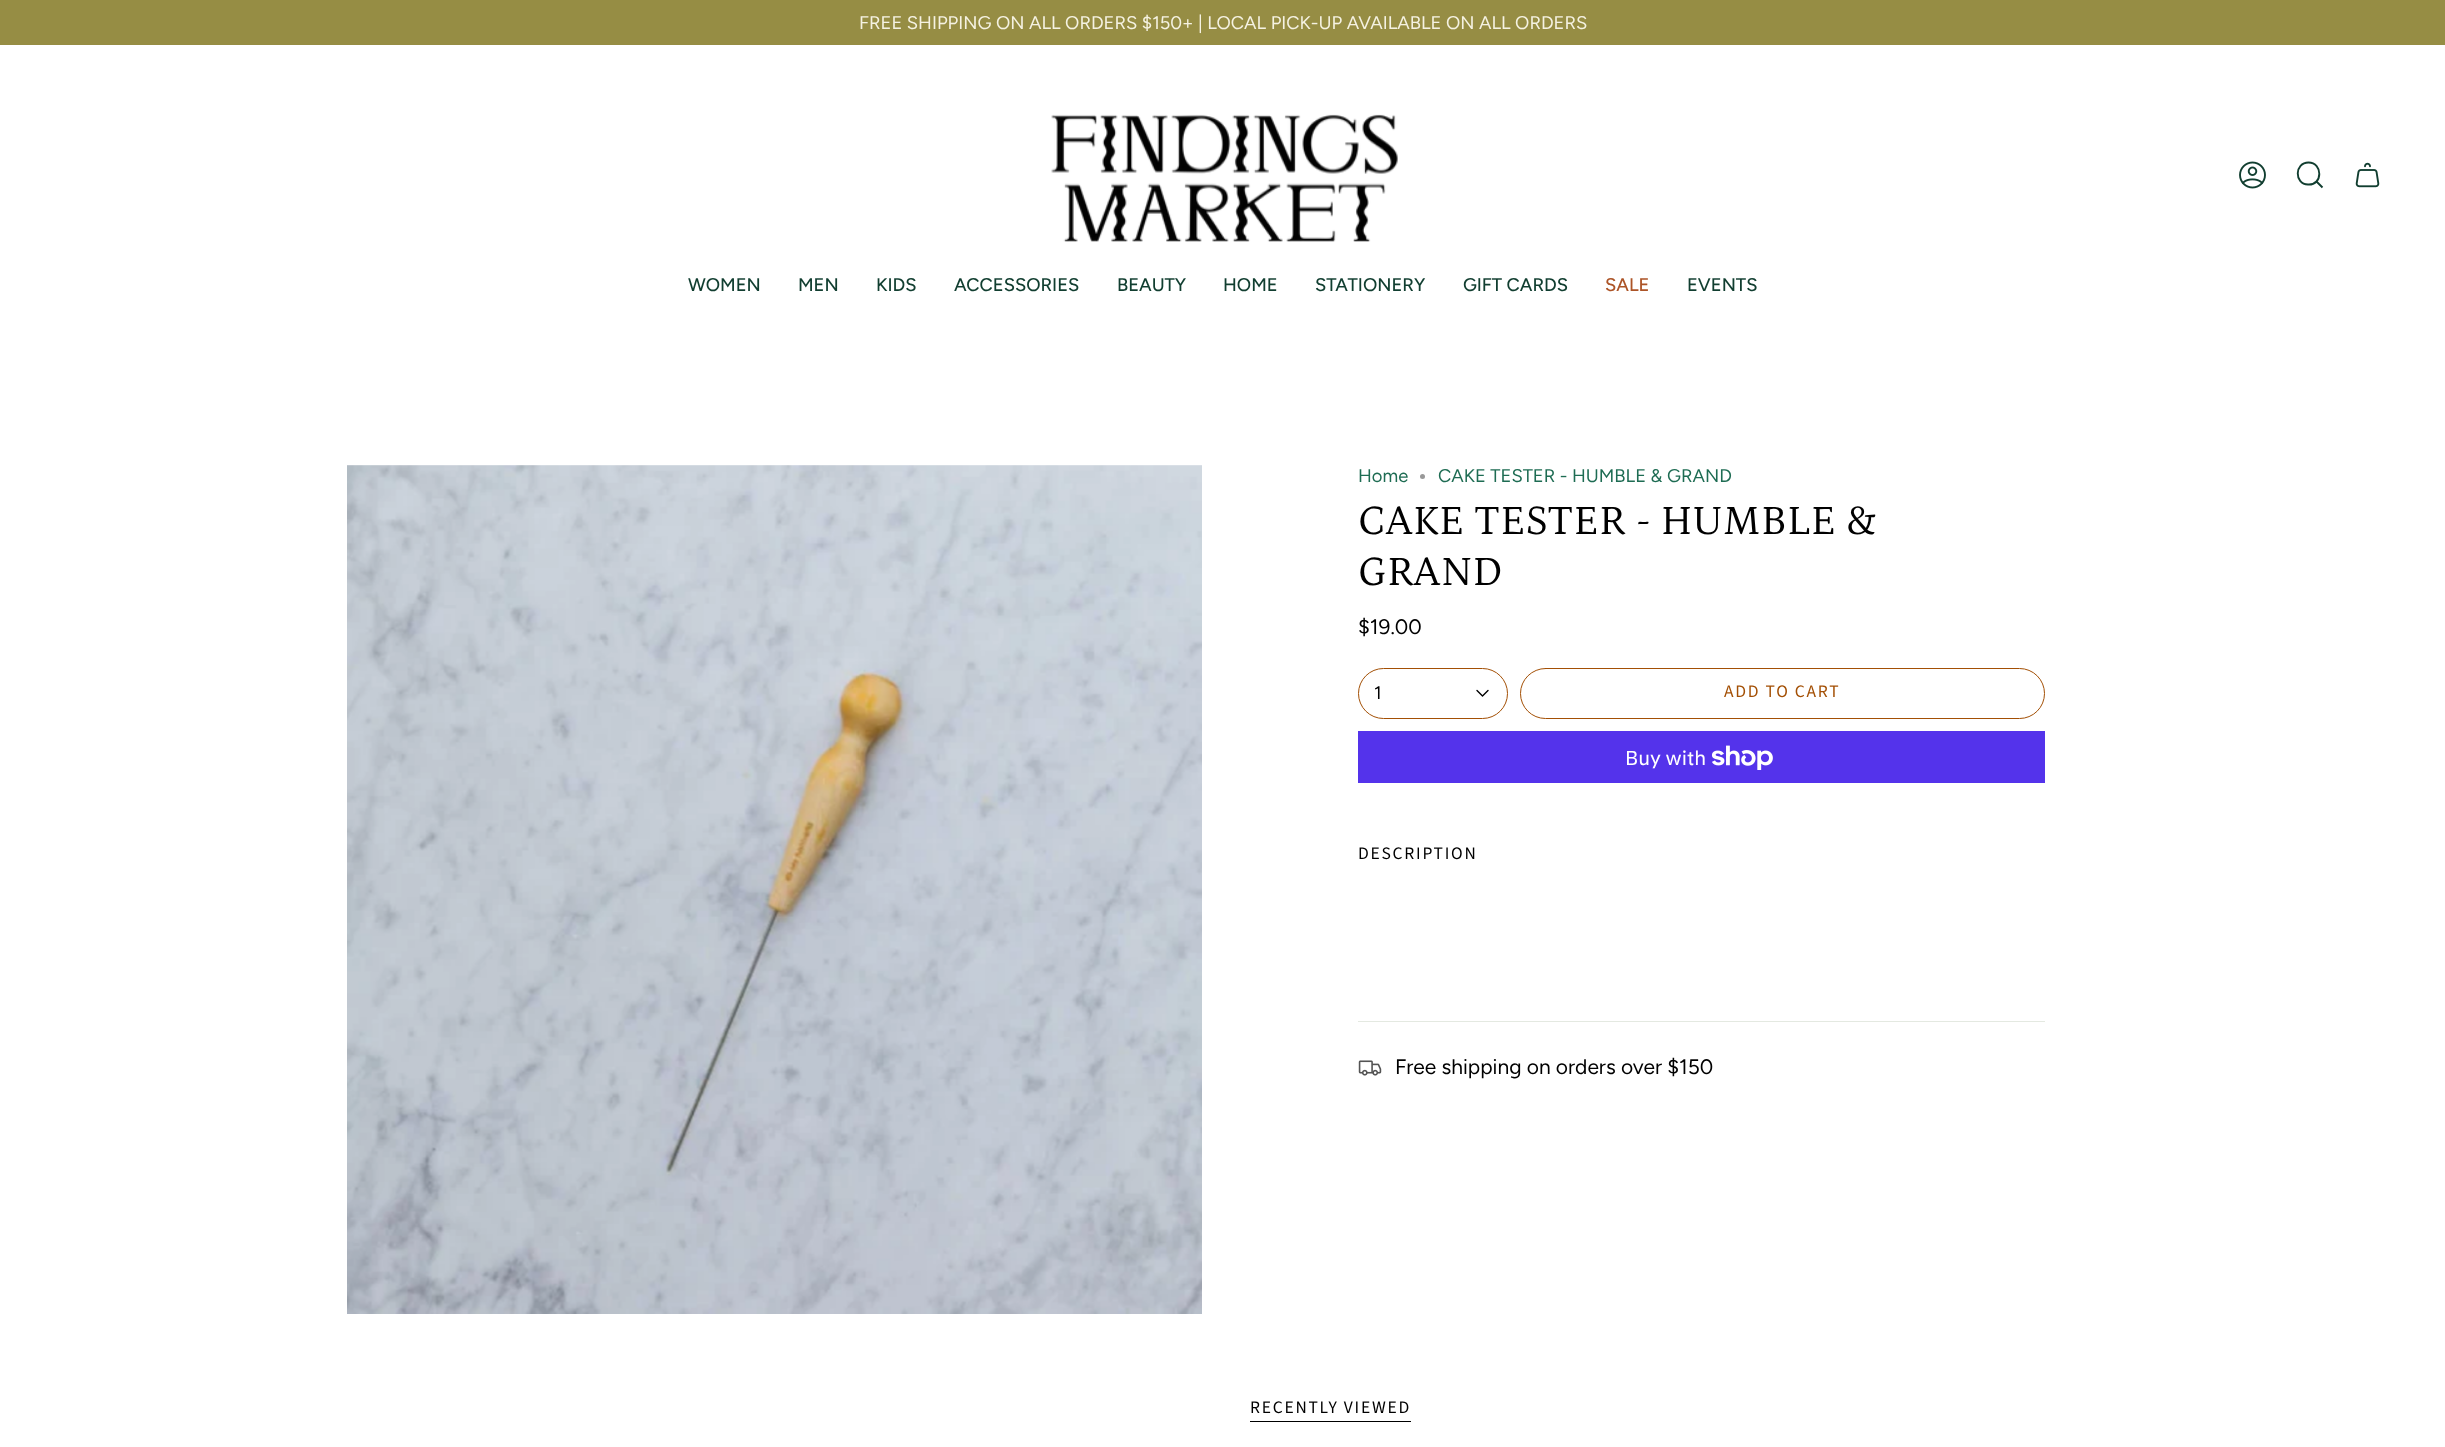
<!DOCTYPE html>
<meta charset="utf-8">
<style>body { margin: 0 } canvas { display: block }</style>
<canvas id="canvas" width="2445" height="1447"></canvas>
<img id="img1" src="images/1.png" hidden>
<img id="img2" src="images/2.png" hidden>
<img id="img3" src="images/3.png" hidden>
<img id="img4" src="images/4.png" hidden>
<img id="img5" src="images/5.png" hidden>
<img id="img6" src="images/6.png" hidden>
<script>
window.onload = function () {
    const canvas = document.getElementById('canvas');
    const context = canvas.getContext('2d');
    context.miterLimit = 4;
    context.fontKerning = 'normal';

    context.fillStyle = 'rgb(255, 255, 255)';
    context.fillRect(0, 0, 2445, 1447);
    context.fillStyle = 'rgb(150, 141, 68)';
    context.fillRect(0, 0, 2445, 45);
    context.drawImage(document.getElementById('img1'), 1051, 114, 347, 128);
    context.drawImage(document.getElementById('img2'), 2239, 161, 27, 28);
    context.beginPath();
    context.moveTo(2308.5, 162.5);
    context.bezierCurveTo(2323, 162.5, 2323, 185.5, 2308, 184.5);
    context.bezierCurveTo(2294, 184, 2294.5, 162.5, 2308.5, 162.5);
    context.closePath();
    context.moveTo(2316.5, 181.5);
    context.lineTo(2322.5, 187.5);
    context.strokeStyle = 'rgb(17, 62, 48)';
    context.lineWidth = 1.9;
    context.stroke();
    context.drawImage(document.getElementById('img3'), 2355, 162, 25, 26);
    context.drawImage(document.getElementById('img4'), 347, 465, 855, 849);
    context.fillStyle = 'rgb(153, 153, 153)';
    context.beginPath();
    context.arc(1422.5, 476.5, 2.5, 0, 2 * Math.PI);
    context.fill();
    context.beginPath();
    context.roundRect(1358.5, 668.5, 149, 50, 25);
    context.strokeStyle = 'rgb(163, 79, 4)';
    context.lineWidth = 1;
    context.stroke();
    context.beginPath();
    context.moveTo(1477, 690.5);
    context.lineTo(1482.5, 696);
    context.lineTo(1488, 690.5);
    context.strokeStyle = 'rgb(0, 0, 0)';
    context.lineWidth = 1.4;
    context.lineCap = 'round';
    context.lineJoin = 'round';
    context.stroke();
    context.beginPath();
    context.roundRect(1520.5, 668.5, 524, 50, 25);
    context.strokeStyle = 'rgb(163, 79, 4)';
    context.lineWidth = 1;
    context.lineJoin = 'miter';
    context.stroke();
    context.fillStyle = 'rgb(84, 51, 235)';
    context.fillRect(1358, 731, 687, 52);
    context.drawImage(document.getElementById('img5'), 1711, 745, 62, 25);
    context.fillStyle = 'rgb(228, 233, 225)';
    context.fillRect(1358, 1021, 687, 1);
    context.drawImage(document.getElementById('img6'), 1358, 1060, 24, 16);
    context.fillStyle = 'rgb(0, 0, 0)';
    context.fillRect(1250, 1421, 161, 1);
    context.font = '18.4px Figtree';
    context.fillStyle = 'rgb(245, 242, 226)';
    context.fillText('FREE SHIPPING ON ALL ORDERS $150+ | LOCAL PICK-UP AVAILABLE ON ALL ORDERS', 859, 29);
    context.font = '500 18.4px Figtree';
    context.fillStyle = 'rgb(17, 62, 48)';
    context.fillText('WOMEN', 688, 291);
    context.fillText('MEN', 798, 291);
    context.fillText('KIDS', 876, 291);
    context.fillText('ACCESSORIES', 954, 291);
    context.fillText('BEAUTY', 1117, 291);
    context.fillText('HOME', 1223, 291);
    context.fillText('STATIONERY', 1315, 291);
    context.fillText('GIFT CARDS', 1463, 291);
    context.fillStyle = 'rgb(172, 84, 39)';
    context.fillText('SALE', 1605, 291);
    context.fillStyle = 'rgb(17, 62, 48)';
    context.fillText('EVENTS', 1687, 291);
    context.font = '18.4px Figtree';
    context.fillStyle = 'rgb(30, 108, 83)';
    context.fillText('Home', 1358, 482);
    context.fillText('CAKE TESTER - HUMBLE & GRAND', 1438, 482);
    context.font = '42.25px Petrona';
    context.fillStyle = 'rgb(0, 0, 0)';
    context.fillText('CAKE TESTER - HUMBLE &', 1358, 534);
    context.fillText('GRAND', 1358, 585);
    context.font = '21px Figtree';
    context.fillText('$19.00', 1358, 634);
    context.font = '18.4px Figtree';
    context.fillText('1', 1374, 699);
    context.letterSpacing = '1.75px';
    context.font = '17.5px Source Sans Pro';
    context.fillStyle = 'rgb(163, 79, 4)';
    context.fillText('ADD TO CART', 1724, 697);
    context.beginPath();
    context.arc(1782.5, 692.5, 9, 0, 2 * Math.PI);
    context.strokeStyle = 'rgb(255, 255, 255)';
    context.lineWidth = 1.2;
    context.stroke();
    context.letterSpacing = '0px';
    context.font = '20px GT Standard';
    context.fillStyle = 'rgb(255, 255, 255)';
    context.fillText('Buy with', 1625, 765);
    context.letterSpacing = '1.75px';
    context.font = '17.5px Source Sans Pro';
    context.fillStyle = 'rgb(0, 0, 0)';
    context.fillText('DESCRIPTION', 1358, 859);
    context.letterSpacing = '0px';
    context.font = '21px Figtree';
    context.fillText('Free shipping on orders over $150', 1395, 1074);
    context.letterSpacing = '1.75px';
    context.font = '17.5px Source Sans Pro';
    context.fillText('RECENTLY VIEWED', 1250, 1413);
};
</script>
